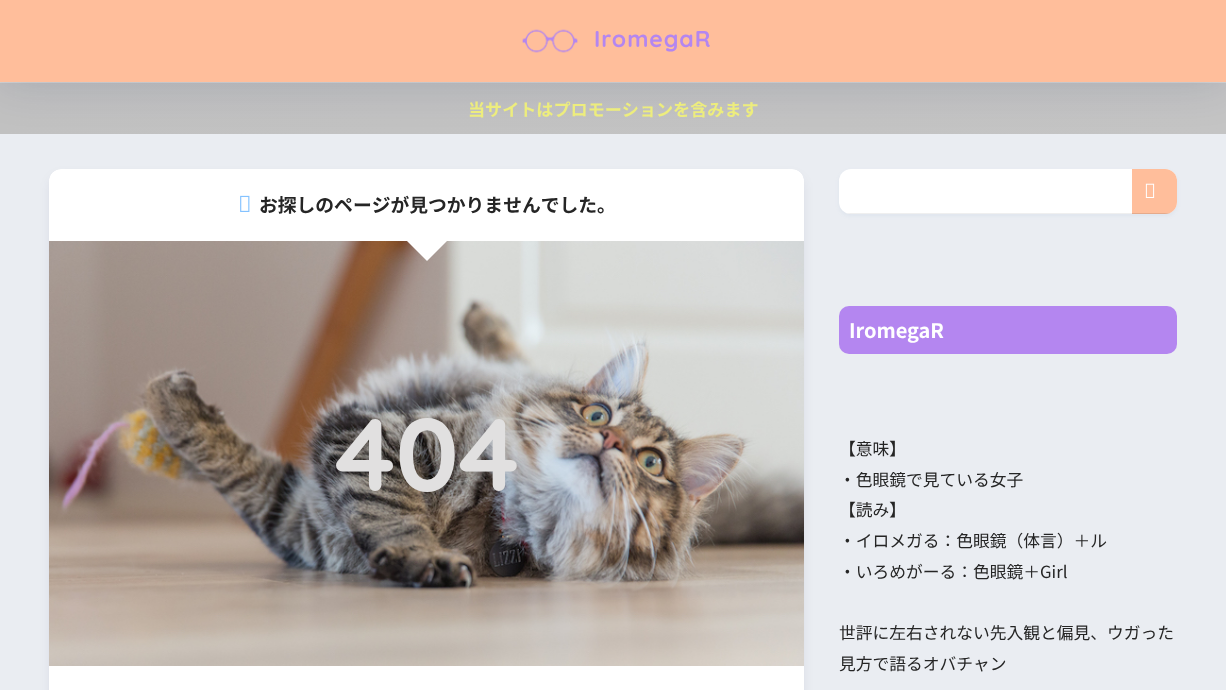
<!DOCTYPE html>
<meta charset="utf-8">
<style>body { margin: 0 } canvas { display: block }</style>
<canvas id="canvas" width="1226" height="690"></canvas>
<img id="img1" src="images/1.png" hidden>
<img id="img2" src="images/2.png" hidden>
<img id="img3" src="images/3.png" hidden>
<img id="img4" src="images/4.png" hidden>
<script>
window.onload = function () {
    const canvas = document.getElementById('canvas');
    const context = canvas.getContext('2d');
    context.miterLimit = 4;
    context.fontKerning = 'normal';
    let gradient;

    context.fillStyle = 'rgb(234, 237, 242)';
    context.fillRect(0, 0, 1226, 690);
    gradient = context.createLinearGradient(2.4, 4.1, 1224, 111);
    gradient.addColorStop(0, 'rgb(212, 212, 212)');
    gradient.addColorStop(1, 'rgb(214, 214, 214)');
    context.fillStyle = gradient;
    context.fillRect(0, 82, 1226, 1);
    gradient = context.createLinearGradient(2.4, 55, 1224, 162);
    gradient.addColorStop(0, 'rgb(193, 193, 193)');
    gradient.addColorStop(1, 'rgb(196, 196, 196)');
    context.fillStyle = gradient;
    context.fillRect(0, 83, 1226, 51);
    context.fillStyle = 'rgba(0, 12, 66, 0.15)';
    context.filter = 'blur(22.5px)';
    context.beginPath();
    context.rect(0, 0, 1226, 82);
    context.fill();
    context.filter = 'none';
    context.fillStyle = 'rgb(255, 190, 155)';
    context.fillRect(0, 0, 1226, 82);
    context.drawImage(document.getElementById('img1'), 522, 29, 56, 24);
    context.fillStyle = 'rgba(0, 30, 100, 0.1)';
    context.filter = 'blur(0.5px)';
    context.beginPath();
    context.roundRect(49, 169, 755, 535, 12);
    context.fill();
    context.filter = 'none';
    context.fillStyle = 'rgba(0, 12, 66, 0.1)';
    context.filter = 'blur(6.5px)';
    context.beginPath();
    context.roundRect(52, 178, 749, 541, 9);
    context.fill();
    context.filter = 'none';
    context.fillStyle = 'rgb(255, 255, 255)';
    context.beginPath();
    context.roundRect(49, 169, 755, 72, [12, 12, 0, 0]);
    context.fill();
    context.drawImage(document.getElementById('img2'), 240, 195, 10, 17);
    context.drawImage(document.getElementById('img3'), 49, 241, 755, 425);
    context.beginPath();
    context.moveTo(407, 241);
    context.lineTo(447, 241);
    context.lineTo(427, 261);
    context.closePath();
    context.fill();
    context.fillRect(49, 666, 755, 24);
    context.fillStyle = 'rgba(67, 133, 187, 0.07)';
    context.filter = 'blur(2px)';
    context.beginPath();
    context.roundRect(839, 171, 338, 45, 12);
    context.fill();
    context.filter = 'none';
    context.fillStyle = 'rgb(255, 255, 255)';
    context.beginPath();
    context.roundRect(839, 169, 338, 45, 12);
    context.fill();
    context.save();
    context.beginPath();
    context.roundRect(839, 169, 338, 45, 12);
    context.clip();
    context.fillStyle = 'rgb(239, 239, 239)';
    context.fillRect(842, 213, 332, 1);
    context.restore();
    context.fillStyle = 'rgb(255, 190, 155)';
    context.beginPath();
    context.roundRect(1132, 169, 45, 45, [0, 12, 12, 0]);
    context.fill();
    context.save();
    context.beginPath();
    context.roundRect(839, 169, 338, 45, 12);
    context.clip();
    context.fillStyle = 'rgba(0, 0, 0, 0.1)';
    context.fillRect(1132, 213, 42, 1);
    context.restore();
    context.drawImage(document.getElementById('img4'), 1145, 183, 10, 15);
    context.fillStyle = 'rgb(180, 134, 240)';
    context.beginPath();
    context.roundRect(839, 306, 338, 48, 10);
    context.fill();
    context.letterSpacing = '1px';
    context.font = 'bold 23px Quicksand';
    context.fillText('IromegaR', 594, 47);
    context.letterSpacing = '0px';
    context.font = 'bold 17.1px Noto Sans JP';
    context.fillStyle = 'rgb(237, 237, 125)';
    context.fillText('当サイトはプロモーションを含みます', 468, 116);
    context.font = 'bold 18.8px Noto Sans JP';
    context.fillStyle = 'rgb(37, 37, 37)';
    context.fillText('お探しのページが見つかりませんでした。', 259, 212);
    context.font = 'bold 103px Quicksand';
    context.fillStyle = 'rgb(225, 224, 224)';
    context.fillText('404', 335, 491);
    context.font = 'bold 20px Noto Sans JP';
    context.fillStyle = 'rgb(255, 255, 255)';
    context.fillText('IromegaR', 849, 338);
    context.font = '16.75px Noto Sans JP';
    context.fillStyle = 'rgb(37, 37, 37)';
    context.fillText('【意味】', 839, 455);
    context.fillText('・色眼鏡で見ている女子', 839, 486);
    context.fillText('【読み】', 839, 516);
    context.fillText('・イロメガる：色眼鏡（体言）＋ル', 839, 547);
    context.fillText('・いろめがーる：色眼鏡＋Girl', 839, 578);
    context.fillText('世評に左右されない先入観と偏見、ウガった', 839, 639);
    context.fillText('見方で語るオバチャン', 839, 670);
};
</script>
